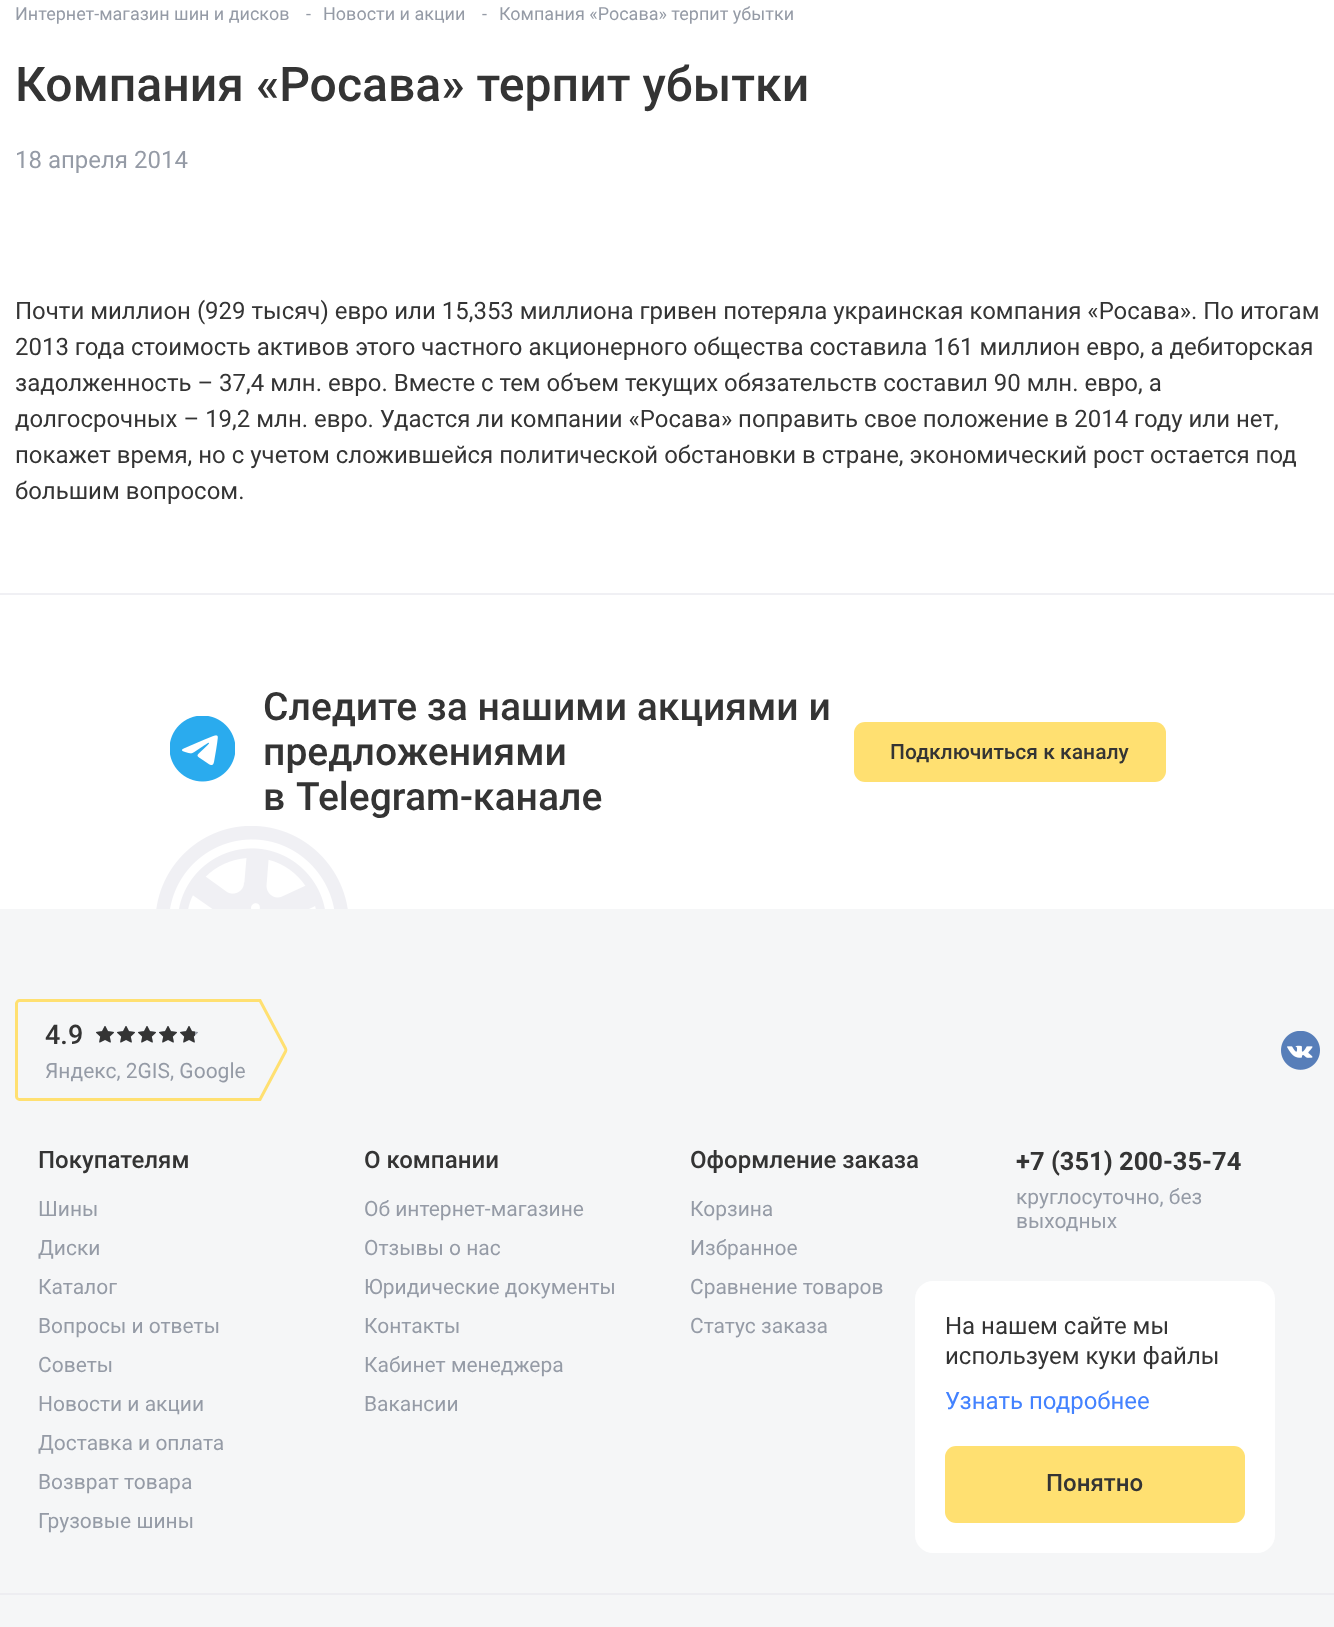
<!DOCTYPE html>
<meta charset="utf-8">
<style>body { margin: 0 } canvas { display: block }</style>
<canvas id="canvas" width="1334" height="1627"></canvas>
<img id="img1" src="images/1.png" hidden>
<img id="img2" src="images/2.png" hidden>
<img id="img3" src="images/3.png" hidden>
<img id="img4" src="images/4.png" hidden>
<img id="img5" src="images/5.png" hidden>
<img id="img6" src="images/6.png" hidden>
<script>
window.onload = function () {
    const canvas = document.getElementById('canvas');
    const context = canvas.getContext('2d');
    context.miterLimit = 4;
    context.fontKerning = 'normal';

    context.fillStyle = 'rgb(255, 255, 255)';
    context.fillRect(0, 0, 1334, 1627);
    context.fillStyle = 'rgb(240, 240, 244)';
    context.fillRect(0, 593, 1334, 2);
    context.drawImage(document.getElementById('img1'), 170, 716, 65, 66);
    context.fillStyle = 'rgb(255, 224, 113)';
    context.beginPath();
    context.roundRect(854, 722, 312, 60, 11);
    context.fill();
    context.drawImage(document.getElementById('img2'), 156, 826, 192, 83);
    context.fillStyle = 'rgb(245, 246, 247)';
    context.fillRect(0, 909, 1334, 718);
    context.beginPath();
    context.moveTo(19.5, 1000.5);
    context.lineTo(260, 1000.5);
    context.lineTo(285.5, 1048.5);
    context.bezierCurveTo(286, 1049.5, 286, 1050.5, 285.5, 1051.5);
    context.lineTo(260, 1099.5);
    context.lineTo(19.5, 1099.5);
    context.bezierCurveTo(18, 1099.5, 16.5, 1098, 16.5, 1096.5);
    context.lineTo(16.5, 1003.5);
    context.bezierCurveTo(16.5, 1002, 18, 1000.5, 19.5, 1000.5);
    context.closePath();
    context.strokeStyle = 'rgb(255, 224, 113)';
    context.lineWidth = 3;
    context.stroke();
    context.drawImage(document.getElementById('img3'), 96, 1026, 18, 17);
    context.drawImage(document.getElementById('img3'), 117, 1026, 18, 17);
    context.drawImage(document.getElementById('img3'), 138, 1026, 18, 17);
    context.drawImage(document.getElementById('img3'), 159, 1026, 18, 17);
    context.drawImage(document.getElementById('img3'), 180, 1026, 18, 17);
    context.drawImage(document.getElementById('img4'), 96, 1026, 18, 17);
    context.drawImage(document.getElementById('img4'), 117, 1026, 18, 17);
    context.drawImage(document.getElementById('img4'), 138, 1026, 18, 17);
    context.drawImage(document.getElementById('img4'), 159, 1026, 18, 17);
    context.drawImage(document.getElementById('img5'), 180, 1026, 15, 17);
    context.drawImage(document.getElementById('img6'), 1281, 1031, 39, 39);
    context.fillStyle = 'rgb(237, 237, 241)';
    context.fillRect(0, 1593, 1334, 2);
    context.fillStyle = 'rgb(255, 255, 255)';
    context.beginPath();
    context.roundRect(915, 1281, 360, 272, 18);
    context.fill();
    context.fillStyle = 'rgb(255, 224, 113)';
    context.beginPath();
    context.roundRect(945, 1446, 300, 77, 11);
    context.fill();
    context.font = '18px Roboto';
    context.fillStyle = 'rgb(149, 155, 166)';
    context.fillText('Интернет-магазин шин и дисков', 15, 20);
    context.fillText('-', 306, 20);
    context.fillText('Новости и акции', 323, 20);
    context.fillText('-', 482, 20);
    context.fillText('Компания «Росава» терпит убытки', 499, 20);
    context.font = '500 48px Roboto';
    context.fillStyle = 'rgb(52, 52, 52)';
    context.fillText('Компания «Росава» терпит убытки', 15, 101);
    context.font = '24px Roboto';
    context.fillStyle = 'rgb(149, 155, 166)';
    context.fillText('18 апреля 2014', 15, 168);
    context.fillStyle = 'rgb(52, 52, 52)';
    context.fillText('Почти миллион (929 тысяч) евро или 15,353 миллиона гривен потеряла украинская компания «Росава». По итогам', 15, 319);
    context.fillText('2013 года стоимость активов этого частного акционерного общества составила 161 миллион евро, а дебиторская', 15, 355);
    context.fillText('задолженность – 37,4 млн. евро. Вместе с тем объем текущих обязательств составил 90 млн. евро, а', 15, 391);
    context.fillText('долгосрочных – 19,2 млн. евро. Удастся ли компании «Росава» поправить свое положение в 2014 году или нет,', 15, 427);
    context.fillText('покажет время, но с учетом сложившейся политической обстановки в стране, экономический рост остается под', 15, 463);
    context.fillText('большим вопросом.', 15, 499);
    context.font = '500 39px Roboto';
    context.fillText('Следите за нашими акциями и', 263, 720);
    context.fillText('предложениями', 263, 765);
    context.wordSpacing = '1px';
    context.fillText('в Telegram-канале', 263, 810);
    context.wordSpacing = '0px';
    context.font = '500 21px Roboto';
    context.fillText('Подключиться к каналу', 890, 759);
    context.font = '500 27px Roboto';
    context.fillText('4.9', 45, 1044);
    context.font = '21px Roboto';
    context.fillStyle = 'rgb(149, 155, 166)';
    context.fillText('Яндекс, 2GIS, Google', 45, 1078);
    context.font = '500 24px Roboto';
    context.fillStyle = 'rgb(52, 52, 52)';
    context.fillText('Покупателям', 38, 1168);
    context.font = '21px Roboto';
    context.fillStyle = 'rgb(149, 155, 166)';
    context.fillText('Шины', 38, 1216);
    context.fillText('Диски', 38, 1255);
    context.fillText('Каталог', 38, 1294);
    context.fillText('Вопросы и ответы', 38, 1333);
    context.fillText('Советы', 38, 1372);
    context.fillText('Новости и акции', 38, 1411);
    context.fillText('Доставка и оплата', 38, 1450);
    context.fillText('Возврат товара', 38, 1489);
    context.fillText('Грузовые шины', 38, 1528);
    context.font = '500 24px Roboto';
    context.fillStyle = 'rgb(52, 52, 52)';
    context.fillText('О компании', 364, 1168);
    context.font = '21px Roboto';
    context.fillStyle = 'rgb(149, 155, 166)';
    context.fillText('Об интернет-магазине', 364, 1216);
    context.fillText('Отзывы о нас', 364, 1255);
    context.fillText('Юридические документы', 364, 1294);
    context.fillText('Контакты', 364, 1333);
    context.fillText('Кабинет менеджера', 364, 1372);
    context.fillText('Вакансии', 364, 1411);
    context.font = '500 24px Roboto';
    context.fillStyle = 'rgb(52, 52, 52)';
    context.fillText('Оформление заказа', 690, 1168);
    context.font = '21px Roboto';
    context.fillStyle = 'rgb(149, 155, 166)';
    context.fillText('Корзина', 690, 1216);
    context.fillText('Избранное', 690, 1255);
    context.fillText('Сравнение товаров', 690, 1294);
    context.fillText('Статус заказа', 690, 1333);
    context.font = 'bold 25.5px Roboto';
    context.fillStyle = 'rgb(52, 52, 52)';
    context.fillText('+7 (351) 200-35-74', 1016, 1170);
    context.font = '21px Roboto';
    context.fillStyle = 'rgb(149, 155, 166)';
    context.fillText('круглосуточно, без', 1016, 1204);
    context.fillText('выходных', 1016, 1228);
    context.font = '24px Roboto';
    context.fillStyle = 'rgb(52, 52, 52)';
    context.fillText('На нашем сайте мы', 945, 1334);
    context.fillText('используем куки файлы', 945, 1364);
    context.fillStyle = 'rgb(67, 130, 255)';
    context.fillText('Узнать подробнее', 945, 1409);
    context.font = '500 24px Roboto';
    context.fillStyle = 'rgb(52, 52, 52)';
    context.fillText('Понятно', 1046, 1491);
};
</script>
